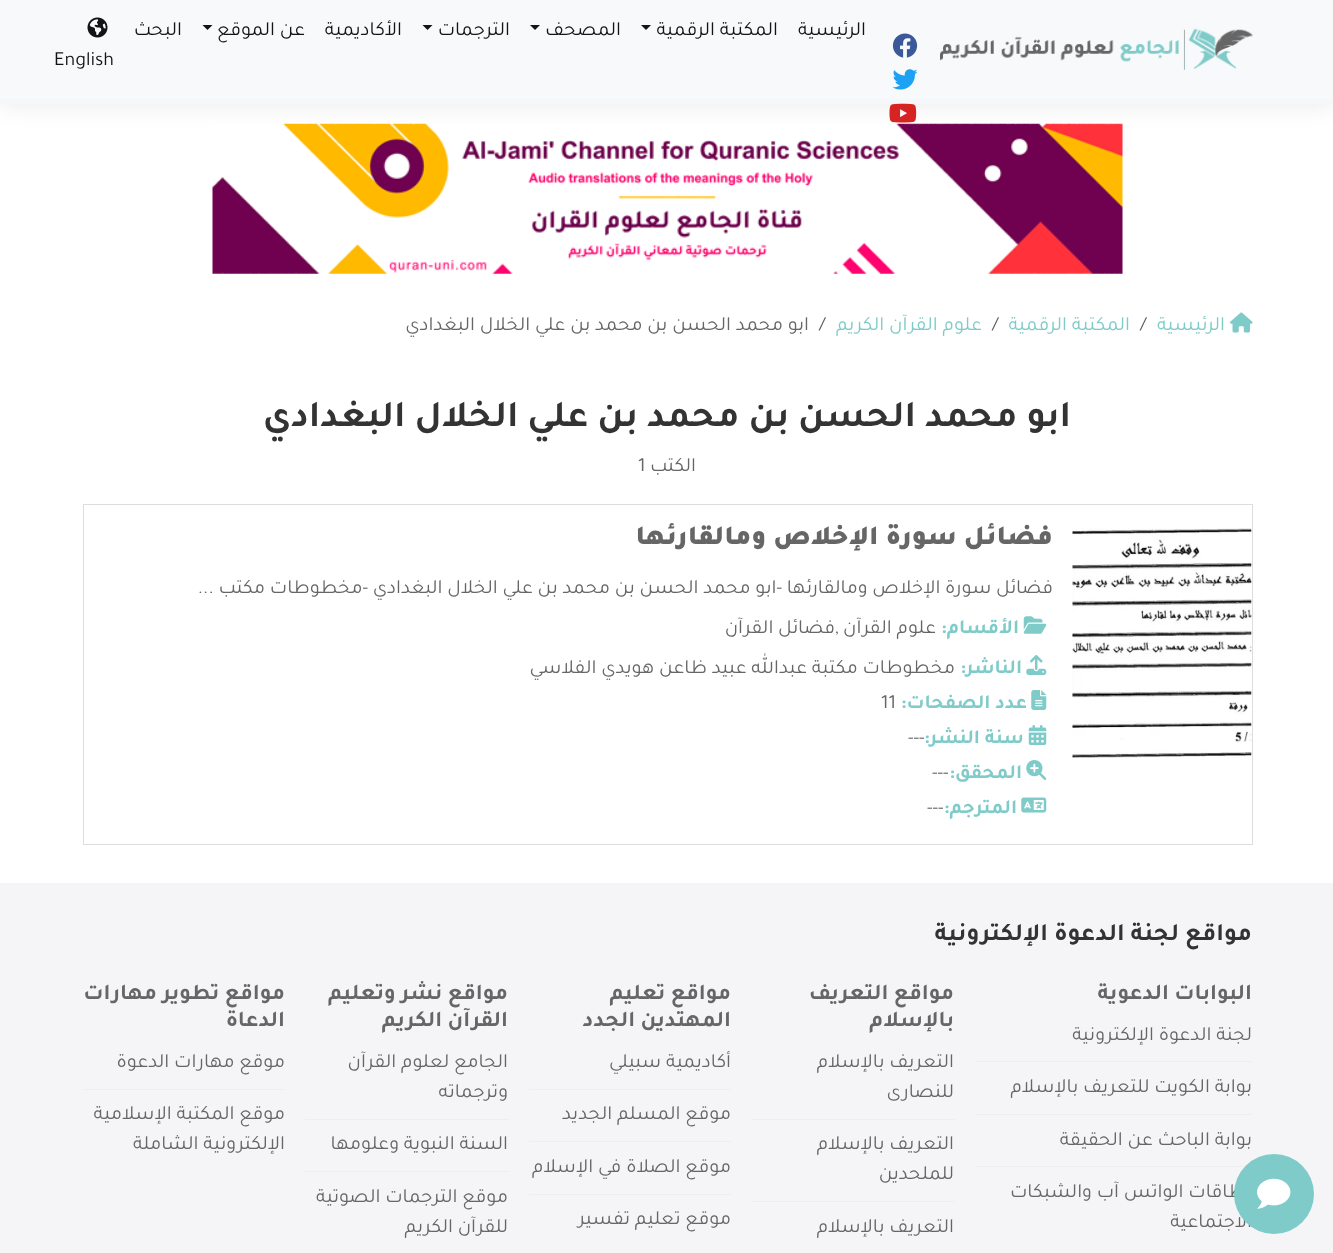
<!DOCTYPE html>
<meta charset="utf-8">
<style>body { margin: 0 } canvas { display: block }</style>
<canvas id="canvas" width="1333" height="1253"></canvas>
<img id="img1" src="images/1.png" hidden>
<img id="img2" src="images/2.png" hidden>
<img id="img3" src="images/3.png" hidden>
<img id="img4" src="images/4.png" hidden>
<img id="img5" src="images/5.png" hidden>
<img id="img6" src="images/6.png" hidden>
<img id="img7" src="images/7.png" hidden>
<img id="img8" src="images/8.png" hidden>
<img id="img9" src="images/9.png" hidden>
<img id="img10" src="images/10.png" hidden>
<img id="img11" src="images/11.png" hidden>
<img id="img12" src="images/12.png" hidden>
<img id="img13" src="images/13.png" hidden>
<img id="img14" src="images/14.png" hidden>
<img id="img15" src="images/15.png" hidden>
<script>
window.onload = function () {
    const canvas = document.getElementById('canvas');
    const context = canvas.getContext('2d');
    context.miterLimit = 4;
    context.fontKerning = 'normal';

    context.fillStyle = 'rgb(255, 255, 255)';
    context.fillRect(0, 0, 1333, 1253);
    context.fillStyle = 'rgba(0, 0, 0, 0.09)';
    context.filter = 'blur(12.5px)';
    context.beginPath();
    context.rect(0, 0, 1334, 104);
    context.fill();
    context.filter = 'none';
    context.fillStyle = 'rgb(248, 249, 250)';
    context.fillRect(0, 0, 1333, 99);
    context.fillStyle = 'rgb(246, 247, 250)';
    context.fillRect(0, 99, 1333, 5);
    context.drawImage(document.getElementById('img1'), 940, 28, 313, 42);
    context.drawImage(document.getElementById('img2'), 892, 33, 26, 25);
    context.drawImage(document.getElementById('img3'), 892, 69, 26, 21);
    context.drawImage(document.getElementById('img4'), 889, 103, 28, 20);
    context.fillStyle = 'rgb(20, 20, 20)';
    context.beginPath();
    context.moveTo(641, 25);
    context.lineTo(651, 25);
    context.lineTo(646, 30);
    context.closePath();
    context.fill();
    context.beginPath();
    context.moveTo(530, 25);
    context.lineTo(540, 25);
    context.lineTo(535, 30);
    context.closePath();
    context.fill();
    context.beginPath();
    context.moveTo(422.5, 25);
    context.lineTo(432.5, 25);
    context.lineTo(427.5, 30);
    context.closePath();
    context.fill();
    context.beginPath();
    context.moveTo(202.5, 25);
    context.lineTo(212.5, 25);
    context.lineTo(207.5, 30);
    context.closePath();
    context.fill();
    context.drawImage(document.getElementById('img5'), 87, 17, 21, 21);
    context.drawImage(document.getElementById('img6'), 212, 123, 911, 151);
    context.drawImage(document.getElementById('img7'), 1230, 312, 23, 21);
    context.strokeStyle = 'rgb(221, 221, 221)';
    context.strokeRect(83.5, 504.5, 1169, 340);
    context.drawImage(document.getElementById('img8'), 1072, 528, 180, 230);
    context.drawImage(document.getElementById('img9'), 1023, 616, 24, 18);
    context.drawImage(document.getElementById('img10'), 1026, 655, 21, 20);
    context.drawImage(document.getElementById('img11'), 1031, 690, 16, 20);
    context.drawImage(document.getElementById('img12'), 1028, 725, 19, 20);
    context.drawImage(document.getElementById('img13'), 1026, 760, 21, 20);
    context.drawImage(document.getElementById('img14'), 1021, 797, 26, 16);
    context.fillStyle = 'rgb(245, 245, 247)';
    context.fillRect(0, 883, 1333, 370);
    context.fillStyle = 'rgb(238, 238, 238)';
    context.fillRect(975, 1061, 278, 1);
    context.fillRect(975, 1114, 278, 1);
    context.fillRect(975, 1166, 278, 1);
    context.fillRect(751, 1119, 204, 1);
    context.fillRect(751, 1201, 204, 1);
    context.fillRect(529, 1089, 202, 1);
    context.fillRect(529, 1141, 202, 1);
    context.fillRect(529, 1194, 202, 1);
    context.fillRect(305, 1119, 204, 1);
    context.fillRect(305, 1171, 204, 1);
    context.fillRect(83, 1089, 202, 1);
    context.direction = 'rtl';
    context.font = '20px Tajawal';
    context.fillStyle = 'rgb(20, 20, 20)';
    context.fillText('الرئيسية', 866, 35);
    context.fillText('المكتبة الرقمية', 778, 35);
    context.fillText('المصحف', 621, 35);
    context.fillText('الترجمات', 510, 35);
    context.fillText('الأكاديمية', 402, 35);
    context.fillText('عن الموقع', 305, 35);
    context.fillText('البحث', 182, 35);
    context.direction = 'ltr';
    context.fillText('English', 54, 65);
    context.direction = 'rtl';
    context.fillStyle = 'rgb(127, 203, 201)';
    context.fillText('الرئيسية', 1225, 330);
    context.direction = 'ltr';
    context.fillStyle = 'rgb(89, 92, 95)';
    context.fillText('/', 1140, 330);
    context.direction = 'rtl';
    context.fillStyle = 'rgb(127, 203, 201)';
    context.fillText('المكتبة الرقمية', 1130, 330);
    context.direction = 'ltr';
    context.fillStyle = 'rgb(89, 92, 95)';
    context.fillText('/', 992, 330);
    context.direction = 'rtl';
    context.fillStyle = 'rgb(127, 203, 201)';
    context.fillText('علوم القرآن الكريم', 982, 330);
    context.direction = 'ltr';
    context.fillStyle = 'rgb(89, 92, 95)';
    context.fillText('/', 819, 330);
    context.direction = 'rtl';
    context.fillStyle = 'rgb(102, 102, 102)';
    context.fillText('ابو محمد الحسن بن محمد بن علي الخلال البغدادي', 809, 330);
    context.font = 'bold 37.5px Tajawal';
    context.fillStyle = 'rgb(51, 51, 51)';
    context.fillText('ابو محمد الحسن بن محمد بن علي الخلال البغدادي', 1071, 426);
    context.font = '20px Tajawal';
    context.fillStyle = 'rgb(102, 102, 102)';
    context.fillText('الكتب', 696, 471);
    context.direction = 'ltr';
    context.fillText('1', 638, 471);
    context.direction = 'rtl';
    context.font = '900 27.5px Tajawal';
    context.fillText('فضائل سورة الإخلاص ومالقارئها', 1053, 544);
    context.font = '20px Tajawal';
    context.fillText('فضائل سورة الإخلاص ومالقارئها -ابو محمد الحسن بن محمد بن علي الخلال البغدادي -مخطوطات مكتب ...', 1053, 593);
    context.font = 'bold 20px Tajawal';
    context.fillStyle = 'rgb(127, 203, 201)';
    context.fillText('الأقسام:', 1019, 633);
    context.font = '20px Tajawal';
    context.fillStyle = 'rgb(102, 102, 102)';
    context.fillText('علوم القرآن', 936, 633);
    context.direction = 'ltr';
    context.fillText(',', 835, 633);
    context.direction = 'rtl';
    context.fillText('فضائل القرآن', 835, 633);
    context.font = 'bold 20px Tajawal';
    context.fillStyle = 'rgb(127, 203, 201)';
    context.fillText('الناشر:', 1022, 673);
    context.font = '20px Tajawal';
    context.fillStyle = 'rgb(102, 102, 102)';
    context.fillText('مخطوطات مكتبة عبدالله عبيد ظاعن هويدي الفلاسي', 955, 673);
    context.font = 'bold 20px Tajawal';
    context.fillStyle = 'rgb(127, 203, 201)';
    context.fillText('عدد الصفحات:', 1027, 708);
    context.direction = 'ltr';
    context.font = '20px Tajawal';
    context.fillStyle = 'rgb(102, 102, 102)';
    context.fillText('11', 881, 708);
    context.direction = 'rtl';
    context.font = 'bold 20px Tajawal';
    context.fillStyle = 'rgb(127, 203, 201)';
    context.fillText('سنة النشر:', 1024, 743);
    context.direction = 'ltr';
    context.font = '20px Tajawal';
    context.fillStyle = 'rgb(102, 102, 102)';
    context.fillText('---', 908, 743);
    context.direction = 'rtl';
    context.font = 'bold 20px Tajawal';
    context.fillStyle = 'rgb(127, 203, 201)';
    context.fillText('المحقق:', 1022, 778);
    context.direction = 'ltr';
    context.font = '20px Tajawal';
    context.fillStyle = 'rgb(102, 102, 102)';
    context.fillText('---', 932, 778);
    context.direction = 'rtl';
    context.font = 'bold 20px Tajawal';
    context.fillStyle = 'rgb(127, 203, 201)';
    context.fillText('المترجم:', 1017, 813);
    context.direction = 'ltr';
    context.font = '20px Tajawal';
    context.fillStyle = 'rgb(102, 102, 102)';
    context.fillText('---', 927, 813);
    context.direction = 'rtl';
    context.font = 'bold 25px Tajawal';
    context.fillStyle = 'rgb(51, 51, 51)';
    context.fillText('مواقع لجنة الدعوة الإلكترونية', 1252, 940);
    context.font = 'bold 22.5px Tajawal';
    context.fillStyle = 'rgb(102, 102, 102)';
    context.fillText('البوابات الدعوية', 1252, 999);
    context.font = '20px Tajawal';
    context.fillText('لجنة الدعوة الإلكترونية', 1252, 1040);
    context.fillText('بوابة الكويت للتعريف بالإسلام', 1252, 1092);
    context.fillText('بوابة الباحث عن الحقيقة', 1252, 1145);
    context.fillText('بطاقات الواتس آب والشبكات', 1252, 1197);
    context.fillText('الاجتماعية', 1252, 1227);
    context.fillStyle = 'rgb(127, 203, 201)';
    context.beginPath();
    context.arc(1274, 1194, 40, 0, 2 * Math.PI);
    context.fill();
    context.drawImage(document.getElementById('img15'), 1257, 1178, 34, 31);
    context.font = 'bold 22.5px Tajawal';
    context.fillStyle = 'rgb(102, 102, 102)';
    context.fillText('مواقع التعريف', 954, 999);
    context.fillText('بالإسلام', 954, 1026);
    context.font = '20px Tajawal';
    context.fillText('التعريف بالإسلام', 954, 1067);
    context.fillText('للنصارى', 954, 1097);
    context.fillText('التعريف بالإسلام', 954, 1149);
    context.fillText('للملحدين', 954, 1179);
    context.fillText('التعريف بالإسلام', 954, 1232);
    context.font = 'bold 22.5px Tajawal';
    context.fillText('مواقع تعليم', 731, 999);
    context.fillText('المهتدين الجدد', 731, 1026);
    context.font = '20px Tajawal';
    context.fillText('أكاديمية سبيلي', 731, 1067);
    context.fillText('موقع المسلم الجديد', 731, 1119);
    context.fillText('موقع الصلاة في الإسلام', 731, 1172);
    context.fillText('موقع تعليم تفسير', 731, 1224);
    context.font = 'bold 22.5px Tajawal';
    context.fillText('مواقع نشر وتعليم', 508, 999);
    context.fillText('القرآن الكريم', 508, 1026);
    context.font = '20px Tajawal';
    context.fillText('الجامع لعلوم القرآن', 508, 1067);
    context.fillText('وترجماته', 508, 1097);
    context.fillText('السنة النبوية وعلومها', 508, 1149);
    context.fillText('موقع الترجمات الصوتية', 508, 1202);
    context.fillText('للقرآن الكريم', 508, 1232);
    context.font = 'bold 22.5px Tajawal';
    context.fillText('مواقع تطوير مهارات', 285, 999);
    context.fillText('الدعاة', 285, 1026);
    context.font = '20px Tajawal';
    context.fillText('موقع مهارات الدعوة', 285, 1067);
    context.fillText('موقع المكتبة الإسلامية', 285, 1119);
    context.fillText('الإلكترونية الشاملة', 285, 1149);
};
</script>
